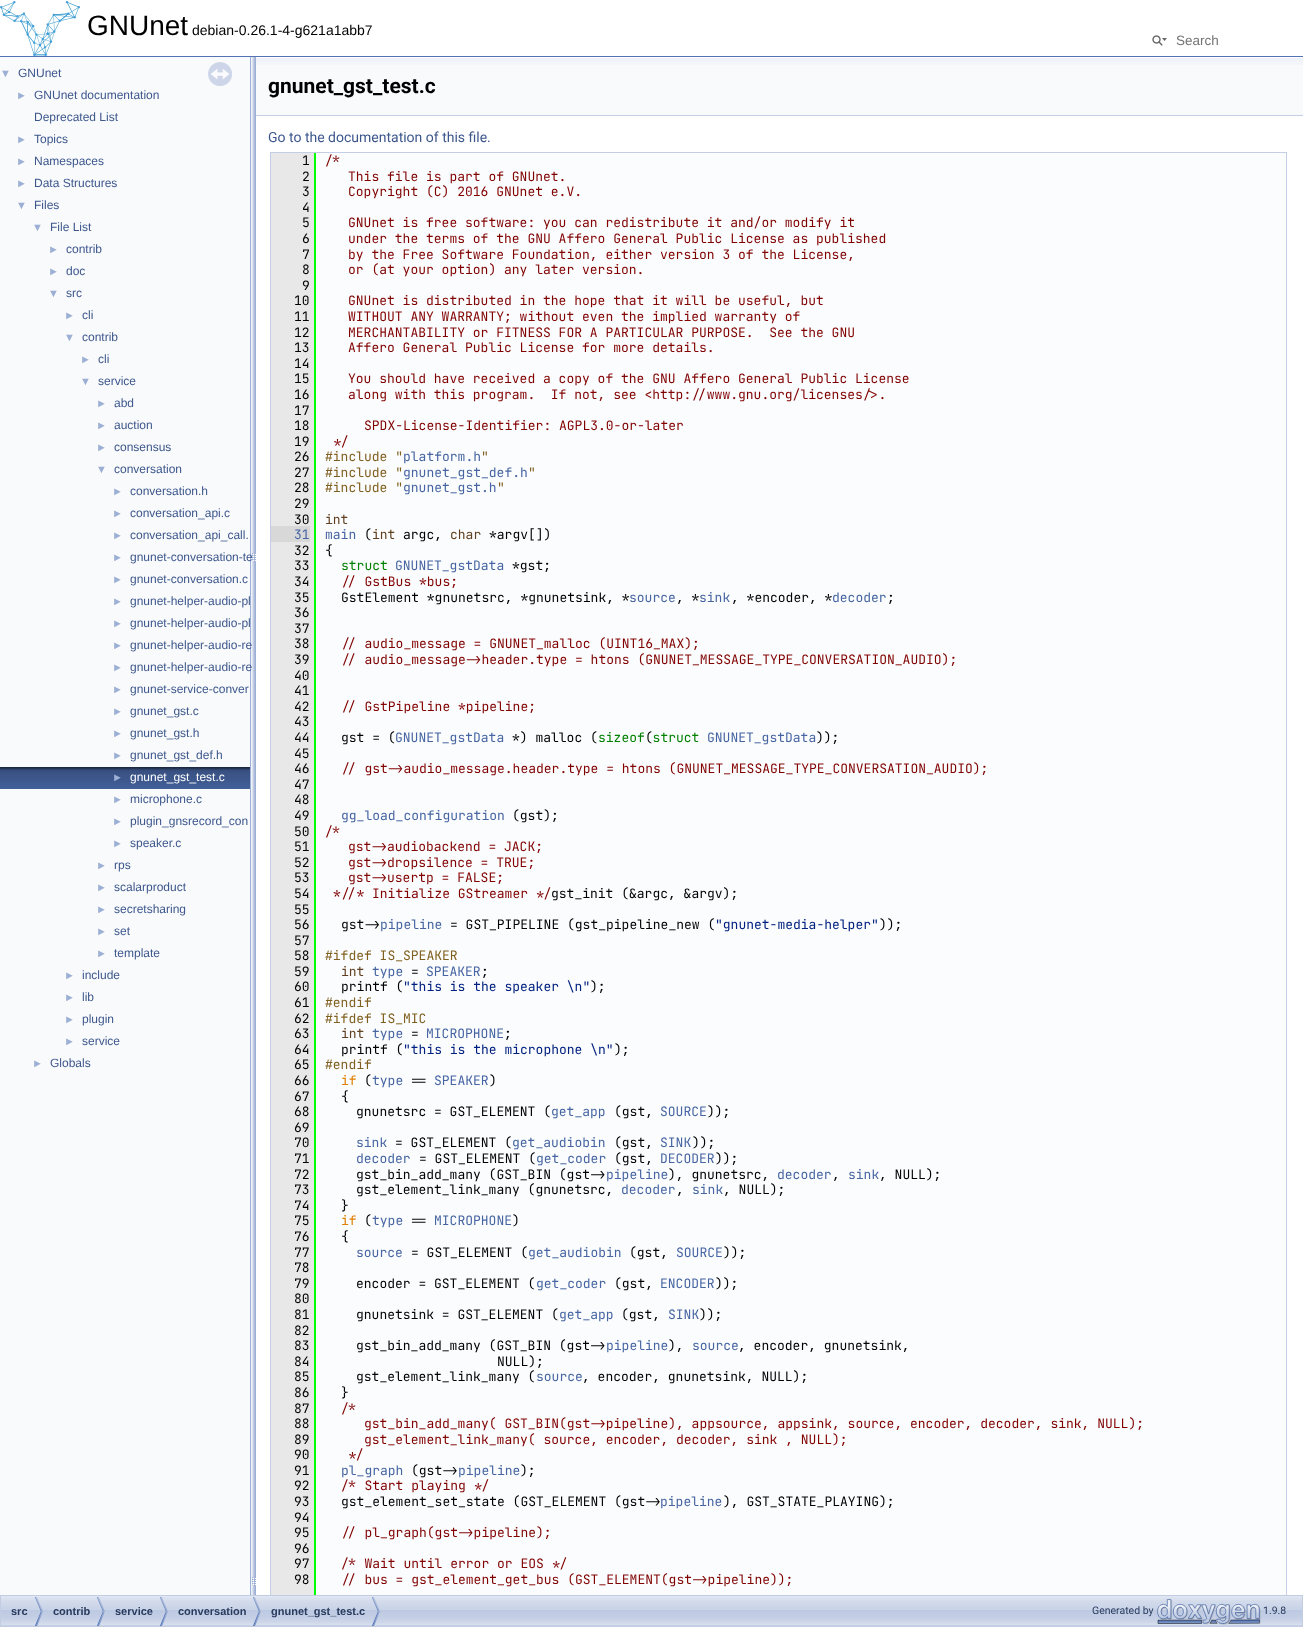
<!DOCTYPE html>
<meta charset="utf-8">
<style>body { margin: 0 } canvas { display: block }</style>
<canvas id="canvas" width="1303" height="1627"></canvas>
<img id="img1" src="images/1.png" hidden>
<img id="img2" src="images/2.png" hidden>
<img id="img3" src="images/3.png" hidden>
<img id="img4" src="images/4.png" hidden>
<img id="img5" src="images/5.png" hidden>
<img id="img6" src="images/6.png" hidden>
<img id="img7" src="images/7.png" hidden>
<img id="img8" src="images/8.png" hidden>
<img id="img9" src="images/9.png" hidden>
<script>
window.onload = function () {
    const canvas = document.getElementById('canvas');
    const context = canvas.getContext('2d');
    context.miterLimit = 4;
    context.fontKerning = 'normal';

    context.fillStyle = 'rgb(255, 255, 255)';
    context.fillRect(0, 0, 1303, 1627);
    context.fillStyle = 'rgb(83, 115, 180)';
    context.fillRect(0, 56, 1303, 1);
    context.drawImage(document.getElementById('img1'), 0, 1, 80, 55);
    context.drawImage(document.getElementById('img2'), 1152, 35, 15, 11);
    context.fillStyle = 'rgb(249, 250, 252)';
    context.fillRect(0, 57, 250, 1538);
    context.drawImage(document.getElementById('img3'), 208, 62, 24, 24);
    context.drawImage(document.getElementById('img4'), 0, 767, 250, 22);
    context.drawImage(document.getElementById('img5'), 250, 57, 6, 1538);
    context.fillRect(256, 65, 1047, 50);
    context.drawImage(document.getElementById('img6'), 256, 57, 1047, 8);
    context.fillStyle = 'rgb(196, 207, 229)';
    context.fillRect(256, 115, 1047, 1);
    context.fillStyle = 'rgb(251, 252, 253)';
    context.fillRect(316, 153, 970, 1442);
    context.strokeStyle = 'rgb(196, 207, 229)';
    context.strokeRect(270.5, 152.5, 1016, 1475);
    context.fillStyle = 'rgb(232, 232, 232)';
    context.fillRect(271, 153, 43, 373);
    context.fillStyle = 'rgb(0, 255, 0)';
    context.fillRect(314, 153, 2, 1076);
    context.fillStyle = 'rgb(232, 232, 232)';
    context.fillRect(310, 526, 4, 16);
    context.fillStyle = 'rgb(216, 216, 216)';
    context.fillRect(271, 526, 39, 16);
    context.fillStyle = 'rgb(232, 232, 232)';
    context.fillRect(271, 542, 43, 967);
    context.fillStyle = 'rgb(0, 255, 0)';
    context.fillRect(314, 1228, 2, 360);
    context.fillStyle = 'rgb(232, 232, 232)';
    context.fillRect(271, 1509, 43, 78);
    context.fillRect(271, 1587, 45, 8);
    context.fillStyle = 'rgb(0, 255, 0)';
    context.fillRect(314, 1587, 2, 8);
    context.drawImage(document.getElementById('img7'), 1, 1596, 1301, 30);
    context.strokeStyle = 'rgb(194, 205, 228)';
    context.strokeRect(0.5, 1595.5, 1302, 31);
    context.drawImage(document.getElementById('img8'), 35, 1597, 8, 29);
    context.drawImage(document.getElementById('img8'), 97, 1597, 8, 29);
    context.drawImage(document.getElementById('img8'), 160, 1597, 8, 29);
    context.drawImage(document.getElementById('img8'), 253, 1597, 8, 29);
    context.drawImage(document.getElementById('img8'), 372, 1597, 8, 29);
    context.drawImage(document.getElementById('img9'), 1157, 1599, 104, 26);
    context.font = '28px Liberation Sans';
    context.fillStyle = 'rgb(0, 0, 0)';
    context.fillText('GNUnet', 87, 35);
    context.font = '14px Liberation Sans';
    context.fillText('debian-0.26.1-4-g621a1abb7', 192, 35);
    context.font = '13.5px Liberation Sans';
    context.fillStyle = 'rgb(117, 117, 117)';
    context.fillText('Search', 1176, 45);
    context.font = '11px Liberation Sans';
    context.fillStyle = 'rgb(156, 175, 212)';
    context.fillText('▼', 0, 77);
    context.font = '12px Liberation Sans';
    context.fillStyle = 'rgb(61, 87, 140)';
    context.fillText('GNUnet', 18, 77);
    context.font = '11px Liberation Sans';
    context.fillStyle = 'rgb(156, 175, 212)';
    context.fillText('►', 16, 99);
    context.font = '12px Liberation Sans';
    context.fillStyle = 'rgb(61, 87, 140)';
    context.fillText('GNUnet documentation', 34, 99);
    context.fillText('Deprecated List', 34, 121);
    context.font = '11px Liberation Sans';
    context.fillStyle = 'rgb(156, 175, 212)';
    context.fillText('►', 16, 143);
    context.font = '12px Liberation Sans';
    context.fillStyle = 'rgb(61, 87, 140)';
    context.fillText('Topics', 34, 143);
    context.font = '11px Liberation Sans';
    context.fillStyle = 'rgb(156, 175, 212)';
    context.fillText('►', 16, 165);
    context.font = '12px Liberation Sans';
    context.fillStyle = 'rgb(61, 87, 140)';
    context.fillText('Namespaces', 34, 165);
    context.font = '11px Liberation Sans';
    context.fillStyle = 'rgb(156, 175, 212)';
    context.fillText('►', 16, 187);
    context.font = '12px Liberation Sans';
    context.fillStyle = 'rgb(61, 87, 140)';
    context.fillText('Data Structures', 34, 187);
    context.font = '11px Liberation Sans';
    context.fillStyle = 'rgb(156, 175, 212)';
    context.fillText('▼', 16, 209);
    context.font = '12px Liberation Sans';
    context.fillStyle = 'rgb(61, 87, 140)';
    context.fillText('Files', 34, 209);
    context.font = '11px Liberation Sans';
    context.fillStyle = 'rgb(156, 175, 212)';
    context.fillText('▼', 32, 231);
    context.font = '12px Liberation Sans';
    context.fillStyle = 'rgb(61, 87, 140)';
    context.fillText('File List', 50, 231);
    context.font = '11px Liberation Sans';
    context.fillStyle = 'rgb(156, 175, 212)';
    context.fillText('►', 48, 253);
    context.font = '12px Liberation Sans';
    context.fillStyle = 'rgb(61, 87, 140)';
    context.fillText('contrib', 66, 253);
    context.font = '11px Liberation Sans';
    context.fillStyle = 'rgb(156, 175, 212)';
    context.fillText('►', 48, 275);
    context.font = '12px Liberation Sans';
    context.fillStyle = 'rgb(61, 87, 140)';
    context.fillText('doc', 66, 275);
    context.font = '11px Liberation Sans';
    context.fillStyle = 'rgb(156, 175, 212)';
    context.fillText('▼', 48, 297);
    context.font = '12px Liberation Sans';
    context.fillStyle = 'rgb(61, 87, 140)';
    context.fillText('src', 66, 297);
    context.font = '11px Liberation Sans';
    context.fillStyle = 'rgb(156, 175, 212)';
    context.fillText('►', 64, 319);
    context.font = '12px Liberation Sans';
    context.fillStyle = 'rgb(61, 87, 140)';
    context.fillText('cli', 82, 319);
    context.font = '11px Liberation Sans';
    context.fillStyle = 'rgb(156, 175, 212)';
    context.fillText('▼', 64, 341);
    context.font = '12px Liberation Sans';
    context.fillStyle = 'rgb(61, 87, 140)';
    context.fillText('contrib', 82, 341);
    context.font = '11px Liberation Sans';
    context.fillStyle = 'rgb(156, 175, 212)';
    context.fillText('►', 80, 363);
    context.font = '12px Liberation Sans';
    context.fillStyle = 'rgb(61, 87, 140)';
    context.fillText('cli', 98, 363);
    context.font = '11px Liberation Sans';
    context.fillStyle = 'rgb(156, 175, 212)';
    context.fillText('▼', 80, 385);
    context.font = '12px Liberation Sans';
    context.fillStyle = 'rgb(61, 87, 140)';
    context.fillText('service', 98, 385);
    context.font = '11px Liberation Sans';
    context.fillStyle = 'rgb(156, 175, 212)';
    context.fillText('►', 96, 407);
    context.font = '12px Liberation Sans';
    context.fillStyle = 'rgb(61, 87, 140)';
    context.fillText('abd', 114, 407);
    context.font = '11px Liberation Sans';
    context.fillStyle = 'rgb(156, 175, 212)';
    context.fillText('►', 96, 429);
    context.font = '12px Liberation Sans';
    context.fillStyle = 'rgb(61, 87, 140)';
    context.fillText('auction', 114, 429);
    context.font = '11px Liberation Sans';
    context.fillStyle = 'rgb(156, 175, 212)';
    context.fillText('►', 96, 451);
    context.font = '12px Liberation Sans';
    context.fillStyle = 'rgb(61, 87, 140)';
    context.fillText('consensus', 114, 451);
    context.font = '11px Liberation Sans';
    context.fillStyle = 'rgb(156, 175, 212)';
    context.fillText('▼', 96, 473);
    context.font = '12px Liberation Sans';
    context.fillStyle = 'rgb(61, 87, 140)';
    context.fillText('conversation', 114, 473);
    context.font = '11px Liberation Sans';
    context.fillStyle = 'rgb(156, 175, 212)';
    context.fillText('►', 112, 495);
    context.font = '12px Liberation Sans';
    context.fillStyle = 'rgb(61, 87, 140)';
    context.fillText('conversation.h', 130, 495);
    context.font = '11px Liberation Sans';
    context.fillStyle = 'rgb(156, 175, 212)';
    context.fillText('►', 112, 517);
    context.font = '12px Liberation Sans';
    context.fillStyle = 'rgb(61, 87, 140)';
    context.fillText('conversation_api.c', 130, 517);
    context.font = '11px Liberation Sans';
    context.fillStyle = 'rgb(156, 175, 212)';
    context.fillText('►', 112, 539);
    context.font = '12px Liberation Sans';
    context.fillStyle = 'rgb(61, 87, 140)';
    context.fillText('conversation_api_call.', 130, 539);
    context.font = '11px Liberation Sans';
    context.fillStyle = 'rgb(156, 175, 212)';
    context.fillText('►', 112, 561);
    context.font = '12px Liberation Sans';
    context.fillStyle = 'rgb(61, 87, 140)';
    context.fillText('gnunet-conversation-te', 130, 561);
    context.font = '11px Liberation Sans';
    context.fillStyle = 'rgb(156, 175, 212)';
    context.fillText('►', 112, 583);
    context.font = '12px Liberation Sans';
    context.fillStyle = 'rgb(61, 87, 140)';
    context.fillText('gnunet-conversation.c', 130, 583);
    context.font = '11px Liberation Sans';
    context.fillStyle = 'rgb(156, 175, 212)';
    context.fillText('►', 112, 605);
    context.font = '12px Liberation Sans';
    context.fillStyle = 'rgb(61, 87, 140)';
    context.fillText('gnunet-helper-audio-pl', 130, 605);
    context.font = '11px Liberation Sans';
    context.fillStyle = 'rgb(156, 175, 212)';
    context.fillText('►', 112, 627);
    context.font = '12px Liberation Sans';
    context.fillStyle = 'rgb(61, 87, 140)';
    context.fillText('gnunet-helper-audio-pl', 130, 627);
    context.font = '11px Liberation Sans';
    context.fillStyle = 'rgb(156, 175, 212)';
    context.fillText('►', 112, 649);
    context.font = '12px Liberation Sans';
    context.fillStyle = 'rgb(61, 87, 140)';
    context.fillText('gnunet-helper-audio-re', 130, 649);
    context.font = '11px Liberation Sans';
    context.fillStyle = 'rgb(156, 175, 212)';
    context.fillText('►', 112, 671);
    context.font = '12px Liberation Sans';
    context.fillStyle = 'rgb(61, 87, 140)';
    context.fillText('gnunet-helper-audio-re', 130, 671);
    context.font = '11px Liberation Sans';
    context.fillStyle = 'rgb(156, 175, 212)';
    context.fillText('►', 112, 693);
    context.font = '12px Liberation Sans';
    context.fillStyle = 'rgb(61, 87, 140)';
    context.fillText('gnunet-service-conver', 130, 693);
    context.font = '11px Liberation Sans';
    context.fillStyle = 'rgb(156, 175, 212)';
    context.fillText('►', 112, 715);
    context.font = '12px Liberation Sans';
    context.fillStyle = 'rgb(61, 87, 140)';
    context.fillText('gnunet_gst.c', 130, 715);
    context.font = '11px Liberation Sans';
    context.fillStyle = 'rgb(156, 175, 212)';
    context.fillText('►', 112, 737);
    context.font = '12px Liberation Sans';
    context.fillStyle = 'rgb(61, 87, 140)';
    context.fillText('gnunet_gst.h', 130, 737);
    context.font = '11px Liberation Sans';
    context.fillStyle = 'rgb(156, 175, 212)';
    context.fillText('►', 112, 759);
    context.font = '12px Liberation Sans';
    context.fillStyle = 'rgb(61, 87, 140)';
    context.fillText('gnunet_gst_def.h', 130, 759);
    context.font = '11px Liberation Sans';
    context.fillStyle = 'rgb(156, 175, 212)';
    context.fillText('►', 112, 781);
    context.font = '12px Liberation Sans';
    context.fillStyle = 'rgb(255, 255, 255)';
    context.fillText('gnunet_gst_test.c', 130, 781);
    context.font = '11px Liberation Sans';
    context.fillStyle = 'rgb(156, 175, 212)';
    context.fillText('►', 112, 803);
    context.font = '12px Liberation Sans';
    context.fillStyle = 'rgb(61, 87, 140)';
    context.fillText('microphone.c', 130, 803);
    context.font = '11px Liberation Sans';
    context.fillStyle = 'rgb(156, 175, 212)';
    context.fillText('►', 112, 825);
    context.font = '12px Liberation Sans';
    context.fillStyle = 'rgb(61, 87, 140)';
    context.fillText('plugin_gnsrecord_con', 130, 825);
    context.font = '11px Liberation Sans';
    context.fillStyle = 'rgb(156, 175, 212)';
    context.fillText('►', 112, 847);
    context.font = '12px Liberation Sans';
    context.fillStyle = 'rgb(61, 87, 140)';
    context.fillText('speaker.c', 130, 847);
    context.font = '11px Liberation Sans';
    context.fillStyle = 'rgb(156, 175, 212)';
    context.fillText('►', 96, 869);
    context.font = '12px Liberation Sans';
    context.fillStyle = 'rgb(61, 87, 140)';
    context.fillText('rps', 114, 869);
    context.font = '11px Liberation Sans';
    context.fillStyle = 'rgb(156, 175, 212)';
    context.fillText('►', 96, 891);
    context.font = '12px Liberation Sans';
    context.fillStyle = 'rgb(61, 87, 140)';
    context.fillText('scalarproduct', 114, 891);
    context.font = '11px Liberation Sans';
    context.fillStyle = 'rgb(156, 175, 212)';
    context.fillText('►', 96, 913);
    context.font = '12px Liberation Sans';
    context.fillStyle = 'rgb(61, 87, 140)';
    context.fillText('secretsharing', 114, 913);
    context.font = '11px Liberation Sans';
    context.fillStyle = 'rgb(156, 175, 212)';
    context.fillText('►', 96, 935);
    context.font = '12px Liberation Sans';
    context.fillStyle = 'rgb(61, 87, 140)';
    context.fillText('set', 114, 935);
    context.font = '11px Liberation Sans';
    context.fillStyle = 'rgb(156, 175, 212)';
    context.fillText('►', 96, 957);
    context.font = '12px Liberation Sans';
    context.fillStyle = 'rgb(61, 87, 140)';
    context.fillText('template', 114, 957);
    context.font = '11px Liberation Sans';
    context.fillStyle = 'rgb(156, 175, 212)';
    context.fillText('►', 64, 979);
    context.font = '12px Liberation Sans';
    context.fillStyle = 'rgb(61, 87, 140)';
    context.fillText('include', 82, 979);
    context.font = '11px Liberation Sans';
    context.fillStyle = 'rgb(156, 175, 212)';
    context.fillText('►', 64, 1001);
    context.font = '12px Liberation Sans';
    context.fillStyle = 'rgb(61, 87, 140)';
    context.fillText('lib', 82, 1001);
    context.font = '11px Liberation Sans';
    context.fillStyle = 'rgb(156, 175, 212)';
    context.fillText('►', 64, 1023);
    context.font = '12px Liberation Sans';
    context.fillStyle = 'rgb(61, 87, 140)';
    context.fillText('plugin', 82, 1023);
    context.font = '11px Liberation Sans';
    context.fillStyle = 'rgb(156, 175, 212)';
    context.fillText('►', 64, 1045);
    context.font = '12px Liberation Sans';
    context.fillStyle = 'rgb(61, 87, 140)';
    context.fillText('service', 82, 1045);
    context.font = '11px Liberation Sans';
    context.fillStyle = 'rgb(156, 175, 212)';
    context.fillText('►', 32, 1067);
    context.font = '12px Liberation Sans';
    context.fillStyle = 'rgb(61, 87, 140)';
    context.fillText('Globals', 50, 1067);
    context.font = 'bold 21px Roboto';
    context.fillStyle = 'rgb(0, 0, 0)';
    context.fillText('gnunet_gst_test.c', 268, 93);
    context.font = '14px Roboto';
    context.fillStyle = 'rgb(61, 87, 140)';
    context.fillText('Go to the documentation of this file.', 268, 142);
    context.font = '13px JetBrains Mono';
    context.fillStyle = 'rgb(0, 0, 0)';
    context.fillText('1', 302, 165);
    context.fillStyle = 'rgb(128, 0, 0)';
    context.fillText('/*', 325, 165);
    context.fillStyle = 'rgb(0, 0, 0)';
    context.fillText('2', 302, 181);
    context.fillStyle = 'rgb(128, 0, 0)';
    context.fillText('This file is part of GNUnet.', 348, 181);
    context.fillStyle = 'rgb(0, 0, 0)';
    context.fillText('3', 302, 196);
    context.fillStyle = 'rgb(128, 0, 0)';
    context.fillText('Copyright (C) 2016 GNUnet e.V.', 348, 196);
    context.fillStyle = 'rgb(0, 0, 0)';
    context.fillText('4', 302, 212);
    context.fillText('5', 302, 227);
    context.fillStyle = 'rgb(128, 0, 0)';
    context.fillText('GNUnet is free software: you can redistribute it and/or modify it', 348, 227);
    context.fillStyle = 'rgb(0, 0, 0)';
    context.fillText('6', 302, 243);
    context.fillStyle = 'rgb(128, 0, 0)';
    context.fillText('under the terms of the GNU Affero General Public License as published', 348, 243);
    context.fillStyle = 'rgb(0, 0, 0)';
    context.fillText('7', 302, 259);
    context.fillStyle = 'rgb(128, 0, 0)';
    context.fillText('by the Free Software Foundation, either version 3 of the License,', 348, 259);
    context.fillStyle = 'rgb(0, 0, 0)';
    context.fillText('8', 302, 274);
    context.fillStyle = 'rgb(128, 0, 0)';
    context.fillText('or (at your option) any later version.', 348, 274);
    context.fillStyle = 'rgb(0, 0, 0)';
    context.fillText('9', 302, 290);
    context.fillText('10', 294, 305);
    context.fillStyle = 'rgb(128, 0, 0)';
    context.fillText('GNUnet is distributed in the hope that it will be useful, but', 348, 305);
    context.fillStyle = 'rgb(0, 0, 0)';
    context.fillText('11', 294, 321);
    context.fillStyle = 'rgb(128, 0, 0)';
    context.fillText('WITHOUT ANY WARRANTY; without even the implied warranty of', 348, 321);
    context.fillStyle = 'rgb(0, 0, 0)';
    context.fillText('12', 294, 337);
    context.fillStyle = 'rgb(128, 0, 0)';
    context.fillText('MERCHANTABILITY or FITNESS FOR A PARTICULAR PURPOSE.  See the GNU', 348, 337);
    context.fillStyle = 'rgb(0, 0, 0)';
    context.fillText('13', 294, 352);
    context.fillStyle = 'rgb(128, 0, 0)';
    context.fillText('Affero General Public License for more details.', 348, 352);
    context.fillStyle = 'rgb(0, 0, 0)';
    context.fillText('14', 294, 368);
    context.fillText('15', 294, 383);
    context.fillStyle = 'rgb(128, 0, 0)';
    context.fillText('You should have received a copy of the GNU Affero General Public License', 348, 383);
    context.fillStyle = 'rgb(0, 0, 0)';
    context.fillText('16', 294, 399);
    context.fillStyle = 'rgb(128, 0, 0)';
    context.fillText('along with this program.  If not, see <http://www.gnu.org/licenses/>.', 348, 399);
    context.fillStyle = 'rgb(0, 0, 0)';
    context.fillText('17', 294, 415);
    context.fillText('18', 294, 430);
    context.fillStyle = 'rgb(128, 0, 0)';
    context.fillText('SPDX-License-Identifier: AGPL3.0-or-later', 364, 430);
    context.fillStyle = 'rgb(0, 0, 0)';
    context.fillText('19', 294, 446);
    context.fillStyle = 'rgb(128, 0, 0)';
    context.fillText('*/', 333, 446);
    context.fillStyle = 'rgb(0, 0, 0)';
    context.fillText('26', 294, 461);
    context.fillStyle = 'rgb(128, 96, 32)';
    context.fillText('#include "', 325, 461);
    context.fillStyle = 'rgb(70, 101, 162)';
    context.fillText('platform.h', 403, 461);
    context.fillStyle = 'rgb(128, 96, 32)';
    context.fillText('"', 481, 461);
    context.fillStyle = 'rgb(0, 0, 0)';
    context.fillText('27', 294, 477);
    context.fillStyle = 'rgb(128, 96, 32)';
    context.fillText('#include "', 325, 477);
    context.fillStyle = 'rgb(70, 101, 162)';
    context.fillText('gnunet_gst_def.h', 403, 477);
    context.fillStyle = 'rgb(128, 96, 32)';
    context.fillText('"', 528, 477);
    context.fillStyle = 'rgb(0, 0, 0)';
    context.fillText('28', 294, 492);
    context.fillStyle = 'rgb(128, 96, 32)';
    context.fillText('#include "', 325, 492);
    context.fillStyle = 'rgb(70, 101, 162)';
    context.fillText('gnunet_gst.h', 403, 492);
    context.fillStyle = 'rgb(128, 96, 32)';
    context.fillText('"', 497, 492);
    context.fillStyle = 'rgb(0, 0, 0)';
    context.fillText('29', 294, 508);
    context.fillText('30', 294, 524);
    context.fillStyle = 'rgb(96, 64, 32)';
    context.fillText('int', 325, 524);
    context.fillStyle = 'rgb(70, 101, 162)';
    context.fillText('31', 294, 539);
    context.fillText('main', 325, 539);
    context.fillStyle = 'rgb(0, 0, 0)';
    context.fillText('(', 364, 539);
    context.fillStyle = 'rgb(96, 64, 32)';
    context.fillText('int', 372, 539);
    context.fillStyle = 'rgb(0, 0, 0)';
    context.fillText('argc,', 403, 539);
    context.fillStyle = 'rgb(96, 64, 32)';
    context.fillText('char', 450, 539);
    context.fillStyle = 'rgb(0, 0, 0)';
    context.fillText('*argv[])', 489, 539);
    context.fillText('32', 294, 555);
    context.fillText('{', 325, 555);
    context.fillText('33', 294, 570);
    context.fillStyle = 'rgb(0, 128, 0)';
    context.fillText('struct', 341, 570);
    context.fillStyle = 'rgb(70, 101, 162)';
    context.fillText('GNUNET_gstData', 395, 570);
    context.fillStyle = 'rgb(0, 0, 0)';
    context.fillText('*gst;', 512, 570);
    context.fillText('34', 294, 586);
    context.fillStyle = 'rgb(128, 0, 0)';
    context.fillText('// GstBus *bus;', 341, 586);
    context.fillStyle = 'rgb(0, 0, 0)';
    context.fillText('35', 294, 602);
    context.fillText('GstElement *gnunetsrc, *gnunetsink, *', 341, 602);
    context.fillStyle = 'rgb(70, 101, 162)';
    context.fillText('source', 629, 602);
    context.fillStyle = 'rgb(0, 0, 0)';
    context.fillText(', *', 676, 602);
    context.fillStyle = 'rgb(70, 101, 162)';
    context.fillText('sink', 699, 602);
    context.fillStyle = 'rgb(0, 0, 0)';
    context.fillText(', *encoder, *', 731, 602);
    context.fillStyle = 'rgb(70, 101, 162)';
    context.fillText('decoder', 832, 602);
    context.fillStyle = 'rgb(0, 0, 0)';
    context.fillText(';', 887, 602);
    context.fillText('36', 294, 617);
    context.fillText('37', 294, 633);
    context.fillText('38', 294, 648);
    context.fillStyle = 'rgb(128, 0, 0)';
    context.fillText('// audio_message = GNUNET_malloc (UINT16_MAX);', 341, 648);
    context.fillStyle = 'rgb(0, 0, 0)';
    context.fillText('39', 294, 664);
    context.fillStyle = 'rgb(128, 0, 0)';
    context.fillText('// audio_message->header.type = htons (GNUNET_MESSAGE_TYPE_CONVERSATION_AUDIO);', 341, 664);
    context.fillStyle = 'rgb(0, 0, 0)';
    context.fillText('40', 294, 680);
    context.fillText('41', 294, 695);
    context.fillText('42', 294, 711);
    context.fillStyle = 'rgb(128, 0, 0)';
    context.fillText('// GstPipeline *pipeline;', 341, 711);
    context.fillStyle = 'rgb(0, 0, 0)';
    context.fillText('43', 294, 726);
    context.fillText('gst = (', 341, 742);
    context.fillText('*) malloc (', 512, 742);
    context.fillStyle = 'rgb(0, 128, 0)';
    context.fillText('sizeof struct', 598, 742);
    context.fillStyle = 'rgb(0, 0, 0)';
    context.fillText('44', 294, 742);
    context.fillStyle = 'rgb(70, 101, 162)';
    context.fillText('GNUNET_gstData', 395, 742);
    context.fillStyle = 'rgb(0, 0, 0)';
    context.fillText('(', 645, 742);
    context.fillStyle = 'rgb(70, 101, 162)';
    context.fillText('GNUNET_gstData', 707, 742);
    context.fillStyle = 'rgb(0, 0, 0)';
    context.fillText('));', 816, 742);
    context.fillText('45', 294, 758);
    context.fillText('46', 294, 773);
    context.fillStyle = 'rgb(128, 0, 0)';
    context.fillText('// gst->audio_message.header.type = htons (GNUNET_MESSAGE_TYPE_CONVERSATION_AUDIO);', 341, 773);
    context.fillStyle = 'rgb(0, 0, 0)';
    context.fillText('47', 294, 789);
    context.fillText('48', 294, 804);
    context.fillText('49', 294, 820);
    context.fillStyle = 'rgb(70, 101, 162)';
    context.fillText('gg_load_configuration', 341, 820);
    context.fillStyle = 'rgb(0, 0, 0)';
    context.fillText('(gst);', 512, 820);
    context.fillText('50', 294, 836);
    context.fillStyle = 'rgb(128, 0, 0)';
    context.fillText('/*', 325, 836);
    context.fillStyle = 'rgb(0, 0, 0)';
    context.fillText('51', 294, 851);
    context.fillStyle = 'rgb(128, 0, 0)';
    context.fillText('gst->audiobackend = JACK;', 348, 851);
    context.fillStyle = 'rgb(0, 0, 0)';
    context.fillText('52', 294, 867);
    context.fillStyle = 'rgb(128, 0, 0)';
    context.fillText('gst->dropsilence = TRUE;', 348, 867);
    context.fillStyle = 'rgb(0, 0, 0)';
    context.fillText('53', 294, 882);
    context.fillStyle = 'rgb(128, 0, 0)';
    context.fillText('gst->usertp = FALSE;', 348, 882);
    context.fillStyle = 'rgb(0, 0, 0)';
    context.fillText('54', 294, 898);
    context.fillStyle = 'rgb(128, 0, 0)';
    context.fillText('*//* Initialize GStreamer */', 333, 898);
    context.fillStyle = 'rgb(0, 0, 0)';
    context.fillText('gst_init (&argc, &argv);', 551, 898);
    context.fillText('55', 294, 914);
    context.fillText('56', 294, 929);
    context.fillText('gst->', 341, 929);
    context.fillStyle = 'rgb(70, 101, 162)';
    context.fillText('pipeline', 380, 929);
    context.fillStyle = 'rgb(0, 0, 0)';
    context.fillText('= GST_PIPELINE (gst_pipeline_new (', 450, 929);
    context.fillStyle = 'rgb(0, 32, 128)';
    context.fillText('"gnunet-media-helper"', 715, 929);
    context.fillStyle = 'rgb(0, 0, 0)';
    context.fillText('));', 879, 929);
    context.fillText('57', 294, 945);
    context.fillText('58', 294, 960);
    context.fillStyle = 'rgb(128, 96, 32)';
    context.fillText('#ifdef IS_SPEAKER', 325, 960);
    context.fillStyle = 'rgb(0, 0, 0)';
    context.fillText('59', 294, 976);
    context.fillStyle = 'rgb(96, 64, 32)';
    context.fillText('int', 341, 976);
    context.fillStyle = 'rgb(70, 101, 162)';
    context.fillText('type', 372, 976);
    context.fillStyle = 'rgb(0, 0, 0)';
    context.fillText('=', 411, 976);
    context.fillStyle = 'rgb(70, 101, 162)';
    context.fillText('SPEAKER', 426, 976);
    context.fillStyle = 'rgb(0, 0, 0)';
    context.fillText(';', 481, 976);
    context.fillText('60', 294, 991);
    context.fillText('printf (', 341, 991);
    context.fillStyle = 'rgb(0, 32, 128)';
    context.fillText('"this is the speaker \\n"', 403, 991);
    context.fillStyle = 'rgb(0, 0, 0)';
    context.fillText(');', 590, 991);
    context.fillText('61', 294, 1007);
    context.fillStyle = 'rgb(128, 96, 32)';
    context.fillText('#endif', 325, 1007);
    context.fillStyle = 'rgb(0, 0, 0)';
    context.fillText('62', 294, 1023);
    context.fillStyle = 'rgb(128, 96, 32)';
    context.fillText('#ifdef IS_MIC', 325, 1023);
    context.fillStyle = 'rgb(0, 0, 0)';
    context.fillText('63', 294, 1038);
    context.fillStyle = 'rgb(96, 64, 32)';
    context.fillText('int', 341, 1038);
    context.fillStyle = 'rgb(70, 101, 162)';
    context.fillText('type', 372, 1038);
    context.fillStyle = 'rgb(0, 0, 0)';
    context.fillText('=', 411, 1038);
    context.fillStyle = 'rgb(70, 101, 162)';
    context.fillText('MICROPHONE', 426, 1038);
    context.fillStyle = 'rgb(0, 0, 0)';
    context.fillText(';', 504, 1038);
    context.fillText('64', 294, 1054);
    context.fillText('printf (', 341, 1054);
    context.fillStyle = 'rgb(0, 32, 128)';
    context.fillText('"this is the microphone \\n"', 403, 1054);
    context.fillStyle = 'rgb(0, 0, 0)';
    context.fillText(');', 614, 1054);
    context.fillText('65', 294, 1069);
    context.fillStyle = 'rgb(128, 96, 32)';
    context.fillText('#endif', 325, 1069);
    context.fillStyle = 'rgb(0, 0, 0)';
    context.fillText('66', 294, 1085);
    context.fillStyle = 'rgb(224, 128, 0)';
    context.fillText('if', 341, 1085);
    context.fillStyle = 'rgb(0, 0, 0)';
    context.fillText('(', 364, 1085);
    context.fillStyle = 'rgb(70, 101, 162)';
    context.fillText('type', 372, 1085);
    context.fillStyle = 'rgb(0, 0, 0)';
    context.fillText('==', 411, 1085);
    context.fillStyle = 'rgb(70, 101, 162)';
    context.fillText('SPEAKER', 434, 1085);
    context.fillStyle = 'rgb(0, 0, 0)';
    context.fillText(')', 489, 1085);
    context.fillText('67', 294, 1101);
    context.fillText('{', 341, 1101);
    context.fillText('68', 294, 1116);
    context.fillText('gnunetsrc = GST_ELEMENT (', 356, 1116);
    context.fillStyle = 'rgb(70, 101, 162)';
    context.fillText('get_app', 551, 1116);
    context.fillStyle = 'rgb(0, 0, 0)';
    context.fillText('(gst,', 614, 1116);
    context.fillStyle = 'rgb(70, 101, 162)';
    context.fillText('SOURCE', 660, 1116);
    context.fillStyle = 'rgb(0, 0, 0)';
    context.fillText('));', 707, 1116);
    context.fillText('69', 294, 1132);
    context.fillText('70', 294, 1147);
    context.fillStyle = 'rgb(70, 101, 162)';
    context.fillText('sink', 356, 1147);
    context.fillStyle = 'rgb(0, 0, 0)';
    context.fillText('= GST_ELEMENT (', 395, 1147);
    context.fillStyle = 'rgb(70, 101, 162)';
    context.fillText('get_audiobin', 512, 1147);
    context.fillStyle = 'rgb(0, 0, 0)';
    context.fillText('(gst,', 614, 1147);
    context.fillStyle = 'rgb(70, 101, 162)';
    context.fillText('SINK', 660, 1147);
    context.fillStyle = 'rgb(0, 0, 0)';
    context.fillText('));', 692, 1147);
    context.fillText('71', 294, 1163);
    context.fillStyle = 'rgb(70, 101, 162)';
    context.fillText('decoder', 356, 1163);
    context.fillStyle = 'rgb(0, 0, 0)';
    context.fillText('= GST_ELEMENT (', 419, 1163);
    context.fillStyle = 'rgb(70, 101, 162)';
    context.fillText('get_coder', 536, 1163);
    context.fillStyle = 'rgb(0, 0, 0)';
    context.fillText('(gst,', 614, 1163);
    context.fillStyle = 'rgb(70, 101, 162)';
    context.fillText('DECODER', 660, 1163);
    context.fillStyle = 'rgb(0, 0, 0)';
    context.fillText('));', 715, 1163);
    context.fillText('72', 294, 1179);
    context.fillText('gst_bin_add_many (GST_BIN (gst->', 356, 1179);
    context.fillStyle = 'rgb(70, 101, 162)';
    context.fillText('pipeline', 606, 1179);
    context.fillStyle = 'rgb(0, 0, 0)';
    context.fillText('), gnunetsrc,', 668, 1179);
    context.fillStyle = 'rgb(70, 101, 162)';
    context.fillText('decoder', 777, 1179);
    context.fillStyle = 'rgb(0, 0, 0)';
    context.fillText(',', 832, 1179);
    context.fillStyle = 'rgb(70, 101, 162)';
    context.fillText('sink', 848, 1179);
    context.fillStyle = 'rgb(0, 0, 0)';
    context.fillText(', NULL);', 879, 1179);
    context.fillText('73', 294, 1194);
    context.fillText('gst_element_link_many (gnunetsrc,', 356, 1194);
    context.fillStyle = 'rgb(70, 101, 162)';
    context.fillText('decoder', 621, 1194);
    context.fillStyle = 'rgb(0, 0, 0)';
    context.fillText(',', 676, 1194);
    context.fillStyle = 'rgb(70, 101, 162)';
    context.fillText('sink', 692, 1194);
    context.fillStyle = 'rgb(0, 0, 0)';
    context.fillText(', NULL);', 723, 1194);
    context.fillText('74', 294, 1210);
    context.fillText('}', 341, 1210);
    context.fillText('75', 294, 1225);
    context.fillStyle = 'rgb(224, 128, 0)';
    context.fillText('if', 341, 1225);
    context.fillStyle = 'rgb(0, 0, 0)';
    context.fillText('(', 364, 1225);
    context.fillStyle = 'rgb(70, 101, 162)';
    context.fillText('type', 372, 1225);
    context.fillStyle = 'rgb(0, 0, 0)';
    context.fillText('==', 411, 1225);
    context.fillStyle = 'rgb(70, 101, 162)';
    context.fillText('MICROPHONE', 434, 1225);
    context.fillStyle = 'rgb(0, 0, 0)';
    context.fillText(')', 512, 1225);
    context.fillText('76', 294, 1241);
    context.fillText('{', 341, 1241);
    context.fillText('77', 294, 1257);
    context.fillStyle = 'rgb(70, 101, 162)';
    context.fillText('source', 356, 1257);
    context.fillStyle = 'rgb(0, 0, 0)';
    context.fillText('= GST_ELEMENT (', 411, 1257);
    context.fillStyle = 'rgb(70, 101, 162)';
    context.fillText('get_audiobin', 528, 1257);
    context.fillStyle = 'rgb(0, 0, 0)';
    context.fillText('(gst,', 629, 1257);
    context.fillStyle = 'rgb(70, 101, 162)';
    context.fillText('SOURCE', 676, 1257);
    context.fillStyle = 'rgb(0, 0, 0)';
    context.fillText('));', 723, 1257);
    context.fillText('78', 294, 1272);
    context.fillText('79', 294, 1288);
    context.fillText('encoder = GST_ELEMENT (', 356, 1288);
    context.fillStyle = 'rgb(70, 101, 162)';
    context.fillText('get_coder', 536, 1288);
    context.fillStyle = 'rgb(0, 0, 0)';
    context.fillText('(gst,', 614, 1288);
    context.fillStyle = 'rgb(70, 101, 162)';
    context.fillText('ENCODER', 660, 1288);
    context.fillStyle = 'rgb(0, 0, 0)';
    context.fillText('));', 715, 1288);
    context.fillText('80', 294, 1303);
    context.fillText('81', 294, 1319);
    context.fillText('gnunetsink = GST_ELEMENT (', 356, 1319);
    context.fillStyle = 'rgb(70, 101, 162)';
    context.fillText('get_app', 559, 1319);
    context.fillStyle = 'rgb(0, 0, 0)';
    context.fillText('(gst,', 621, 1319);
    context.fillStyle = 'rgb(70, 101, 162)';
    context.fillText('SINK', 668, 1319);
    context.fillStyle = 'rgb(0, 0, 0)';
    context.fillText('));', 699, 1319);
    context.fillText('82', 294, 1335);
    context.fillText('83', 294, 1350);
    context.fillText('gst_bin_add_many (GST_BIN (gst->', 356, 1350);
    context.fillStyle = 'rgb(70, 101, 162)';
    context.fillText('pipeline', 606, 1350);
    context.fillStyle = 'rgb(0, 0, 0)';
    context.fillText('),', 668, 1350);
    context.fillStyle = 'rgb(70, 101, 162)';
    context.fillText('source', 692, 1350);
    context.fillStyle = 'rgb(0, 0, 0)';
    context.fillText(', encoder, gnunetsink,', 738, 1350);
    context.fillText('84', 294, 1366);
    context.fillText('NULL);', 497, 1366);
    context.fillText('85', 294, 1381);
    context.fillText('gst_element_link_many (', 356, 1381);
    context.fillStyle = 'rgb(70, 101, 162)';
    context.fillText('source', 536, 1381);
    context.fillStyle = 'rgb(0, 0, 0)';
    context.fillText(', encoder, gnunetsink, NULL);', 582, 1381);
    context.fillText('86', 294, 1397);
    context.fillText('}', 341, 1397);
    context.fillText('87', 294, 1413);
    context.fillStyle = 'rgb(128, 0, 0)';
    context.fillText('/*', 341, 1413);
    context.fillStyle = 'rgb(0, 0, 0)';
    context.fillText('88', 294, 1428);
    context.fillStyle = 'rgb(128, 0, 0)';
    context.fillText('gst_bin_add_many( GST_BIN(gst->pipeline), appsource, appsink, source, encoder, decoder, sink, NULL);', 364, 1428);
    context.fillStyle = 'rgb(0, 0, 0)';
    context.fillText('89', 294, 1444);
    context.fillStyle = 'rgb(128, 0, 0)';
    context.fillText('gst_element_link_many( source, encoder, decoder, sink , NULL);', 364, 1444);
    context.fillStyle = 'rgb(0, 0, 0)';
    context.fillText('90', 294, 1459);
    context.fillStyle = 'rgb(128, 0, 0)';
    context.fillText('*/', 348, 1459);
    context.fillStyle = 'rgb(0, 0, 0)';
    context.fillText('91', 294, 1475);
    context.fillStyle = 'rgb(70, 101, 162)';
    context.fillText('pl_graph', 341, 1475);
    context.fillStyle = 'rgb(0, 0, 0)';
    context.fillText('(gst->', 411, 1475);
    context.fillStyle = 'rgb(70, 101, 162)';
    context.fillText('pipeline', 458, 1475);
    context.fillStyle = 'rgb(0, 0, 0)';
    context.fillText(');', 520, 1475);
    context.fillText('92', 294, 1490);
    context.fillStyle = 'rgb(128, 0, 0)';
    context.fillText('/* Start playing */', 341, 1490);
    context.fillStyle = 'rgb(0, 0, 0)';
    context.fillText('93', 294, 1506);
    context.fillText('gst_element_set_state (GST_ELEMENT (gst->', 341, 1506);
    context.fillStyle = 'rgb(70, 101, 162)';
    context.fillText('pipeline', 660, 1506);
    context.fillStyle = 'rgb(0, 0, 0)';
    context.fillText('), GST_STATE_PLAYING);', 723, 1506);
    context.fillText('94', 294, 1522);
    context.fillText('95', 294, 1537);
    context.fillStyle = 'rgb(128, 0, 0)';
    context.fillText('// pl_graph(gst->pipeline);', 341, 1537);
    context.fillStyle = 'rgb(0, 0, 0)';
    context.fillText('96', 294, 1553);
    context.fillText('97', 294, 1568);
    context.fillStyle = 'rgb(128, 0, 0)';
    context.fillText('/* Wait until error or EOS */', 341, 1568);
    context.fillStyle = 'rgb(0, 0, 0)';
    context.fillText('98', 294, 1584);
    context.fillStyle = 'rgb(128, 0, 0)';
    context.fillText('// bus = gst_element_get_bus (GST_ELEMENT(gst->pipeline));', 341, 1584);
    context.font = 'bold 11px Liberation Sans';
    context.fillStyle = 'rgb(40, 58, 93)';
    context.fillText('src', 11, 1615);
    context.fillText('contrib', 53, 1615);
    context.fillText('service', 115, 1615);
    context.fillText('conversation', 178, 1615);
    context.fillText('gnunet_gst_test.c', 271, 1615);
    context.font = '10.5px Roboto';
    context.fillText('Generated by', 1092, 1614);
    context.fillText('1.9.8', 1263, 1614);
};
</script>
